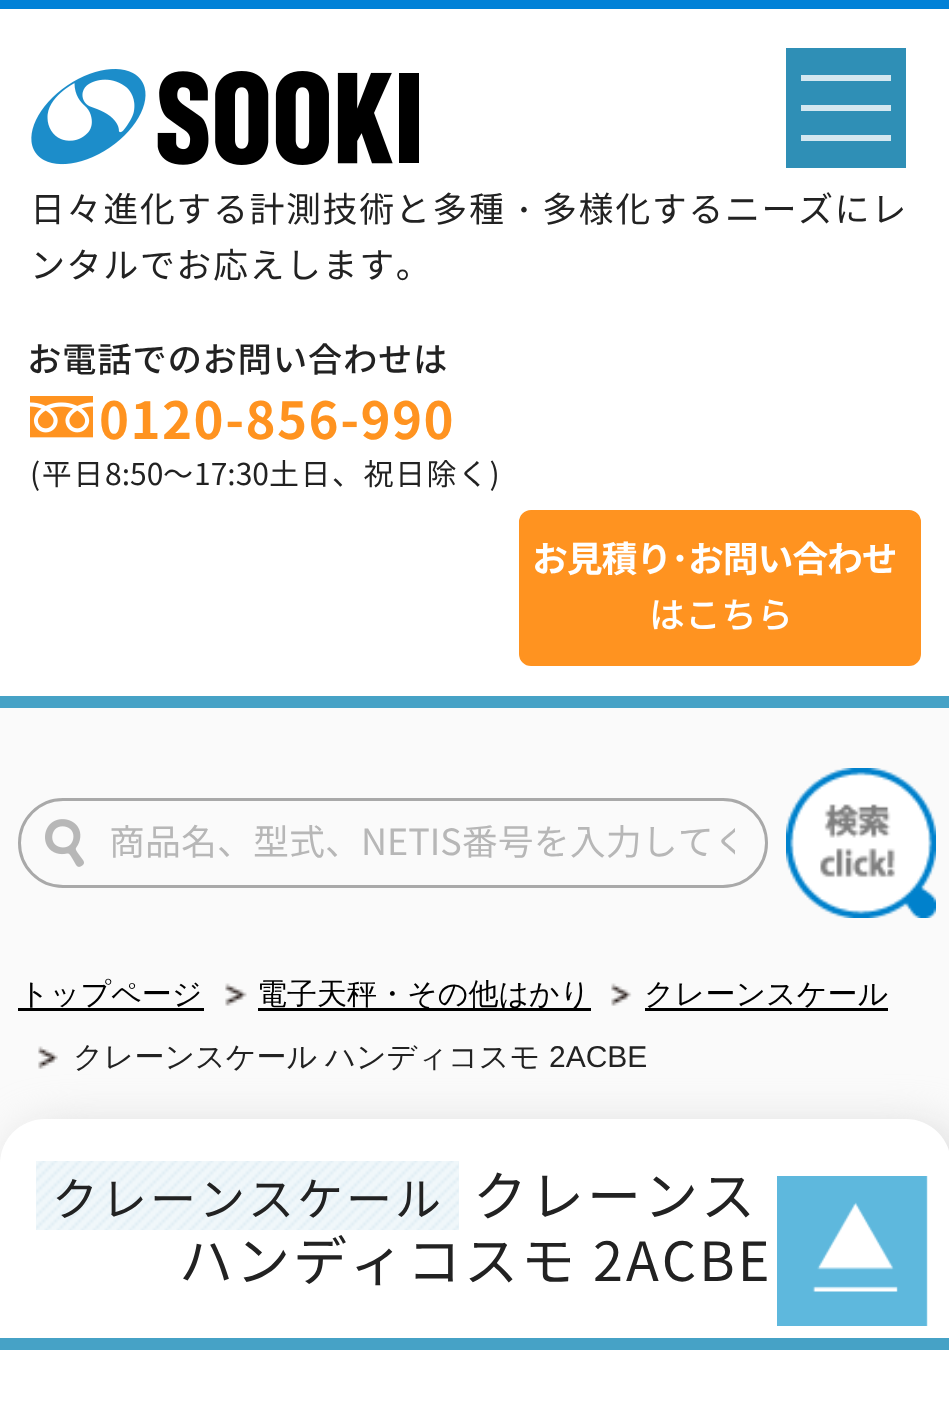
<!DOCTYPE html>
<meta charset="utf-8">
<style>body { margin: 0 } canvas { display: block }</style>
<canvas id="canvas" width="949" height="1403"></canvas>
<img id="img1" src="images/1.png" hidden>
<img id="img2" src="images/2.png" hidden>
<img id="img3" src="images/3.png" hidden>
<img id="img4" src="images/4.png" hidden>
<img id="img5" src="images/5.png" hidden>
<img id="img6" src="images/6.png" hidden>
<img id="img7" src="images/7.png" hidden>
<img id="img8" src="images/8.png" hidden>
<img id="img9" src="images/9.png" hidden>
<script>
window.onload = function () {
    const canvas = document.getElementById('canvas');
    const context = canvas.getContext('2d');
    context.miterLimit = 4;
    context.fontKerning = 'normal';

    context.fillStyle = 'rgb(255, 255, 255)';
    context.fillRect(0, 0, 949, 1403);
    context.fillStyle = 'rgb(1, 129, 215)';
    context.fillRect(0, 0, 949, 9);
    context.drawImage(document.getElementById('img1'), 31, 69, 388, 96);
    context.fillStyle = 'rgb(47, 143, 182)';
    context.fillRect(786, 48, 120, 120);
    context.fillStyle = 'rgb(211, 231, 240)';
    context.fillRect(801, 75, 90, 6);
    context.fillRect(801, 105, 90, 6);
    context.fillRect(801, 135, 90, 6);
    context.drawImage(document.getElementById('img2'), 30, 396, 63, 42);
    context.fillStyle = 'rgb(255, 147, 32)';
    context.beginPath();
    context.roundRect(520.5, 511.5, 399, 153, 10.5);
    context.fill();
    context.strokeStyle = 'rgb(255, 147, 32)';
    context.lineWidth = 3;
    context.stroke();
    context.fillStyle = 'rgb(70, 162, 198)';
    context.fillRect(0, 696, 949, 12);
    context.fillStyle = 'rgb(250, 250, 250)';
    context.fillRect(0, 708, 949, 456);
    context.drawImage(document.getElementById('img3'), 45, 819, 39, 48);
    context.beginPath();
    context.roundRect(19.5, 799.5, 747, 87, 43.5);
    context.strokeStyle = 'rgb(169, 169, 169)';
    context.stroke();
    context.drawImage(document.getElementById('img4'), 786, 768, 150, 150);
    context.fillStyle = 'rgb(0, 0, 0)';
    context.fillRect(18, 1008, 186, 3);
    context.drawImage(document.getElementById('img5'), 225, 983, 22, 23);
    context.fillRect(258, 1008, 333, 3);
    context.drawImage(document.getElementById('img6'), 611, 983, 21, 23);
    context.fillRect(645, 1008, 243, 3);
    context.fillStyle = 'rgb(211, 211, 211)';
    context.filter = 'blur(24px)';
    context.beginPath();
    context.roundRect(12, 1131, 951, 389, 45);
    context.fill();
    context.filter = 'none';
    context.drawImage(document.getElementById('img7'), 38, 1046, 20, 23);
    context.fillStyle = 'rgb(255, 255, 255)';
    context.beginPath();
    context.roundRect(0, 1119, 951, 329, 45);
    context.fill();
    context.fillStyle = 'rgb(70, 162, 198)';
    context.fillRect(0, 1338, 949, 12);
    context.drawImage(document.getElementById('img8'), 36, 1161, 423, 69);
    context.drawImage(document.getElementById('img9'), 777, 1176, 151, 150);
    context.letterSpacing = '1.5px';
    context.font = '35.1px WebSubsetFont';
    context.fillStyle = 'rgb(34, 34, 34)';
    context.fillText('日々進化する計測技術と多種', 30, 222);
    context.font = '500 35.1px WenQuanYi Zen Hei';
    context.fillText('・', 506, 222);
    context.font = '35.1px WebSubsetFont';
    context.fillText('多様化するニーズにレ', 542, 222);
    context.fillText('ンタルでお応えします。', 30, 278);
    context.letterSpacing = '0.6px';
    context.font = '500 34.5px WebSubsetFont';
    context.fillText('お電話でのお問い合わせは', 27, 372);
    context.letterSpacing = '1.5px';
    context.font = 'bold 51px WebSubsetFont';
    context.fillStyle = 'rgb(255, 147, 32)';
    context.fillText('0120-856-990', 99, 439);
    context.font = '30px WebSubsetFont';
    context.fillStyle = 'rgb(34, 34, 34)';
    context.fillText('(平日', 30, 485);
    context.letterSpacing = '0px';
    context.fillText('8:50', 105, 485);
    context.letterSpacing = '1.5px';
    context.fillText('～', 163, 485);
    context.letterSpacing = '0px';
    context.fillText('17:30', 194, 485);
    context.letterSpacing = '1.5px';
    context.fillText('土日、祝日除く)', 269, 485);
    context.letterSpacing = '-1.25px';
    context.font = 'bold 36px WebSubsetFont';
    context.fillStyle = 'rgb(255, 255, 255)';
    context.fillText('お見積り', 532, 572);
    context.font = 'bold 36px Noto Sans JP';
    context.fillText('･', 671, 572);
    context.font = 'bold 36px WebSubsetFont';
    context.fillText('お問い合わせ', 688, 572);
    context.letterSpacing = '0px';
    context.font = '500 36px WebSubsetFont';
    context.fillText('はこちら', 649, 628);
    context.save();
    context.beginPath();
    context.rect(36, 813, 699, 54);
    context.clip();
    context.font = '36px WebSubsetFont';
    context.fillStyle = 'rgb(183, 183, 183)';
    context.fillText('商品名、型式、NETIS番号を入力してく', 109, 855);
    context.restore();
    context.font = '500 30px WenQuanYi Zen Hei';
    context.fillStyle = 'rgb(0, 0, 0)';
    context.fillText('トップページ', 19, 1004);
    context.fillText('電子天秤・その他はかり', 257, 1004);
    context.fillText('クレーンスケール', 644, 1004);
    context.wordSpacing = '-1px';
    context.fillStyle = 'rgb(34, 34, 34)';
    context.fillText('クレーンスケール ハンディコスモ', 73, 1067);
    context.wordSpacing = '0px';
    context.font = '30px Liberation Sans';
    context.fillText('2ACBE', 549, 1067);
    context.letterSpacing = '3px';
    context.font = '54px WebSubsetFont';
    context.fillText('クレーンス', 473, 1216);
    context.font = '46px WebSubsetFont';
    context.fillText('クレーンスケール', 52, 1216);
    context.font = '54px WebSubsetFont';
    context.fillText('ハンディコスモ 2ACBE', 179, 1281);
};
</script>
